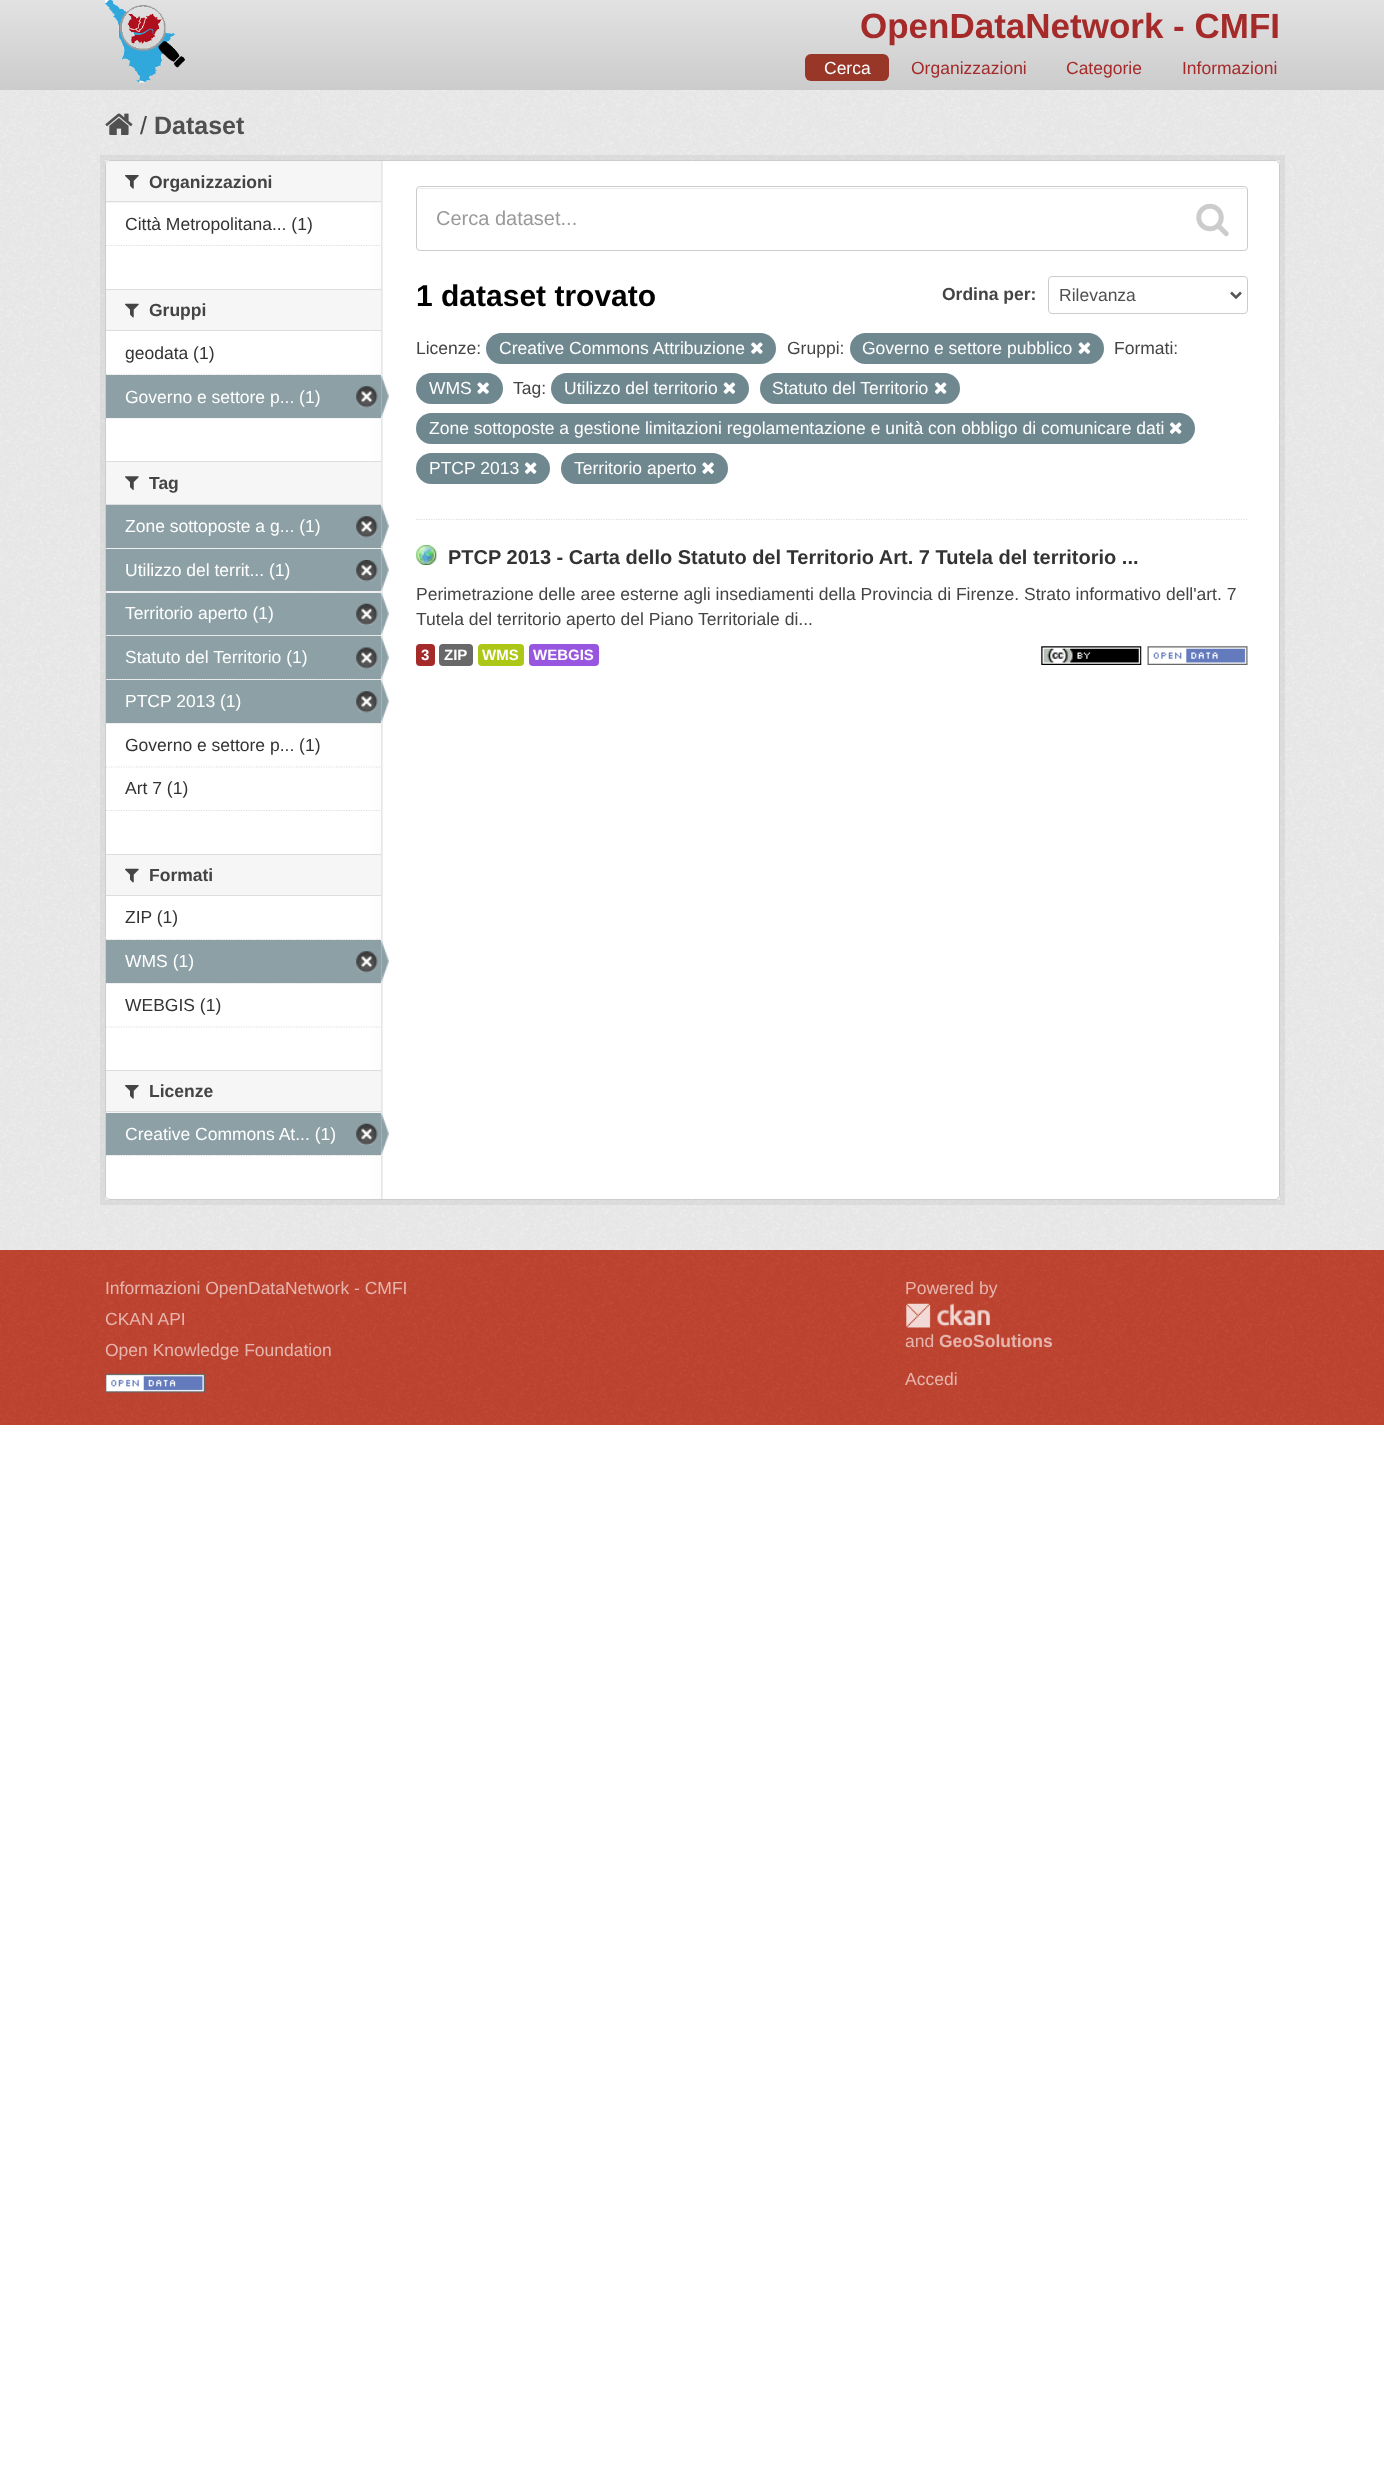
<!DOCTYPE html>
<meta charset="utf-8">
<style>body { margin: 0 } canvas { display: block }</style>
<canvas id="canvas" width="1384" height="2482"></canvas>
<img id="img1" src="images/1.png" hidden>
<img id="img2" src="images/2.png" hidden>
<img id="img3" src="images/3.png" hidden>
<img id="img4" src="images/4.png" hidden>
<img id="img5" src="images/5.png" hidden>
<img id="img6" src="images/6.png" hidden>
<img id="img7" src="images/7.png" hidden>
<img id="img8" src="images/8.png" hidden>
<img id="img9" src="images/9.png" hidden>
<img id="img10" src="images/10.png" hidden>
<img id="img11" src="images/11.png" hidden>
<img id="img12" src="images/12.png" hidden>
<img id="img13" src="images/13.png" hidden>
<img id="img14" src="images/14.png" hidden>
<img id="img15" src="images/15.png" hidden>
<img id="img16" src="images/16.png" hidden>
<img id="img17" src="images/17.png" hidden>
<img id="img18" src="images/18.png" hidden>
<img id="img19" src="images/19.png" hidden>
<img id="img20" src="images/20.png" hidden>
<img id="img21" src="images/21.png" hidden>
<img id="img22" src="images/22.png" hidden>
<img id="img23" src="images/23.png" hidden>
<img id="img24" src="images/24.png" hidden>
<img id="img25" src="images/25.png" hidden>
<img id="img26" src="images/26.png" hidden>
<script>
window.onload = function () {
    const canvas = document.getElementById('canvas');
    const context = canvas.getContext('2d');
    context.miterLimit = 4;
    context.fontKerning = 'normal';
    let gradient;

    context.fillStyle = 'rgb(255, 255, 255)';
    context.fillRect(0, 0, 1384, 2482);
    gradient = context.createLinearGradient(693, 0, 693, 89);
    gradient.addColorStop(0, 'rgb(226, 226, 226)');
    gradient.addColorStop(1, 'rgb(204, 204, 204)');
    context.fillStyle = gradient;
    context.fillRect(0, 0, 1384, 89);
    context.fillStyle = 'rgb(204, 204, 204)';
    context.fillRect(0, 89, 1384, 1);
    context.drawImage(document.getElementById('img1'), 105, 0, 80, 83);
    context.fillStyle = 'rgb(152, 54, 39)';
    context.beginPath();
    context.roundRect(805, 54, 84, 27, 6);
    context.fill();
    context.fillStyle = 'rgb(238, 238, 238)';
    context.fillRect(0, 90, 1384, 1160);
    context.drawImage(document.getElementById('img2'), 0, 90, 1384, 1160);
    context.drawImage(document.getElementById('img3'), 105, 113, 28, 22);
    context.strokeStyle = 'rgba(0, 0, 0, 0.05)';
    context.lineWidth = 5;
    context.strokeRect(102.5, 157.5, 1180, 1045);
    context.fillStyle = 'rgb(255, 255, 255)';
    context.beginPath();
    context.roundRect(105, 160, 1175, 1040, 5);
    context.fill();
    context.drawImage(document.getElementById('img4'), 106, 160, 277, 1040);
    context.beginPath();
    context.roundRect(105.5, 160.5, 1174, 1039, 4.5);
    context.strokeStyle = 'rgb(204, 204, 204)';
    context.lineWidth = 1;
    context.stroke();
    context.fillStyle = 'rgb(246, 246, 246)';
    context.beginPath();
    context.roundRect(106, 161, 275, 42, [4, 0, 0, 0]);
    context.fill();
    context.fillStyle = 'rgb(221, 221, 221)';
    context.fillRect(106, 201, 275, 1);
    context.drawImage(document.getElementById('img5'), 125, 175, 14, 14);
    context.beginPath();
    context.moveTo(106, 245.5);
    context.lineTo(381, 245.5);
    context.strokeStyle = 'rgb(221, 221, 221)';
    context.lineWidth = 1.2;
    context.setLineDash([1.25, 1.25]);
    context.stroke();
    context.fillStyle = 'rgb(246, 246, 246)';
    context.fillRect(106, 290, 275, 40);
    context.fillStyle = 'rgb(221, 221, 221)';
    context.fillRect(106, 289, 275, 1);
    context.fillRect(106, 330, 275, 1);
    context.drawImage(document.getElementById('img6'), 125, 303, 14, 15);
    context.beginPath();
    context.moveTo(106, 374.5);
    context.lineTo(381, 374.5);
    context.stroke();
    context.beginPath();
    context.moveTo(106, 418);
    context.lineTo(381, 418);
    context.stroke();
    context.fillStyle = 'rgb(140, 160, 166)';
    context.fillRect(106, 375, 275, 43);
    context.drawImage(document.getElementById('img7'), 356, 386, 22, 22);
    context.drawImage(document.getElementById('img8'), 381, 375, 8, 42);
    context.fillStyle = 'rgb(246, 246, 246)';
    context.fillRect(106, 462, 275, 42);
    context.fillStyle = 'rgb(221, 221, 221)';
    context.fillRect(106, 461, 275, 1);
    context.fillRect(106, 504, 275, 1);
    context.drawImage(document.getElementById('img9'), 125, 476, 14, 14);
    context.fillStyle = 'rgb(246, 246, 246)';
    context.fillRect(106, 548, 275, 1);
    context.beginPath();
    context.moveTo(106, 548);
    context.lineTo(381, 548);
    context.stroke();
    context.fillStyle = 'rgb(140, 160, 166)';
    context.fillRect(106, 505, 275, 43);
    context.drawImage(document.getElementById('img7'), 356, 516, 22, 22);
    context.drawImage(document.getElementById('img8'), 381, 505, 8, 42);
    context.fillStyle = 'rgb(246, 246, 246)';
    context.fillRect(106, 591, 275, 2);
    context.beginPath();
    context.moveTo(106, 592);
    context.lineTo(381, 592);
    context.stroke();
    context.fillStyle = 'rgb(140, 160, 166)';
    context.fillRect(106, 549, 275, 42);
    context.drawImage(document.getElementById('img10'), 356, 560, 22, 22);
    context.drawImage(document.getElementById('img11'), 381, 549, 8, 42);
    context.fillStyle = 'rgb(246, 246, 246)';
    context.fillRect(107, 635, 274, 1);
    context.beginPath();
    context.moveTo(106, 635.5);
    context.lineTo(381, 635.5);
    context.stroke();
    context.fillStyle = 'rgb(140, 160, 166)';
    context.fillRect(106, 593, 275, 42);
    context.drawImage(document.getElementById('img12'), 356, 603, 22, 22);
    context.drawImage(document.getElementById('img13'), 381, 593, 8, 42);
    context.fillStyle = 'rgb(246, 246, 246)';
    context.fillRect(107, 679, 274, 1);
    context.beginPath();
    context.moveTo(106, 679.5);
    context.lineTo(381, 679.5);
    context.stroke();
    context.fillStyle = 'rgb(140, 160, 166)';
    context.fillRect(106, 636, 275, 43);
    context.drawImage(document.getElementById('img14'), 356, 647, 22, 22);
    context.drawImage(document.getElementById('img15'), 381, 636, 8, 43);
    context.fillStyle = 'rgb(246, 246, 246)';
    context.fillRect(106, 723, 275, 1);
    context.beginPath();
    context.moveTo(106, 723);
    context.lineTo(381, 723);
    context.stroke();
    context.fillStyle = 'rgb(140, 160, 166)';
    context.fillRect(106, 680, 275, 43);
    context.drawImage(document.getElementById('img7'), 356, 691, 22, 22);
    context.drawImage(document.getElementById('img8'), 381, 680, 8, 42);
    context.beginPath();
    context.moveTo(106, 767);
    context.lineTo(381, 767);
    context.stroke();
    context.beginPath();
    context.moveTo(106, 810.5);
    context.lineTo(381, 810.5);
    context.stroke();
    context.fillStyle = 'rgb(246, 246, 246)';
    context.fillRect(106, 855, 275, 40);
    context.fillStyle = 'rgb(221, 221, 221)';
    context.fillRect(106, 854, 275, 1);
    context.fillRect(106, 895, 275, 1);
    context.drawImage(document.getElementById('img6'), 125, 868, 14, 15);
    context.beginPath();
    context.moveTo(106, 939.5);
    context.lineTo(381, 939.5);
    context.stroke();
    context.fillStyle = 'rgb(246, 246, 246)';
    context.fillRect(106, 983, 275, 1);
    context.beginPath();
    context.moveTo(106, 983);
    context.lineTo(381, 983);
    context.stroke();
    context.fillStyle = 'rgb(140, 160, 166)';
    context.fillRect(106, 940, 275, 43);
    context.drawImage(document.getElementById('img7'), 356, 951, 22, 22);
    context.drawImage(document.getElementById('img8'), 381, 940, 8, 42);
    context.beginPath();
    context.moveTo(106, 1027);
    context.lineTo(381, 1027);
    context.stroke();
    context.fillStyle = 'rgb(246, 246, 246)';
    context.fillRect(106, 1071, 275, 42);
    context.fillStyle = 'rgb(221, 221, 221)';
    context.fillRect(106, 1070, 275, 1);
    context.fillRect(106, 1111, 275, 1);
    context.drawImage(document.getElementById('img5'), 125, 1085, 14, 14);
    context.beginPath();
    context.moveTo(106, 1155.5);
    context.lineTo(381, 1155.5);
    context.stroke();
    context.fillStyle = 'rgb(140, 160, 166)';
    context.fillRect(106, 1113, 275, 42);
    context.drawImage(document.getElementById('img12'), 356, 1123, 22, 22);
    context.drawImage(document.getElementById('img13'), 381, 1113, 8, 42);
    context.beginPath();
    context.moveTo(416, 519.5);
    context.lineTo(1247.5, 519.5);
    context.stroke();
    context.fillStyle = 'rgb(236, 236, 236)';
    context.beginPath();
    context.moveTo(420, 189);
    context.lineTo(1244, 189);
    context.bezierCurveTo(1245, 189, 1246, 190, 1246, 191);
    context.lineTo(1246, 190);
    context.bezierCurveTo(1246, 189, 1245, 188, 1244, 188);
    context.lineTo(420, 188);
    context.bezierCurveTo(419, 188, 418, 189, 418, 190);
    context.lineTo(418, 191);
    context.bezierCurveTo(418, 190, 419, 189, 420, 189);
    context.closePath();
    context.fill();
    context.beginPath();
    context.roundRect(416.5, 186.5, 831, 64, 3.5);
    context.strokeStyle = 'rgb(204, 204, 204)';
    context.lineWidth = 1;
    context.setLineDash([]);
    context.stroke();
    context.drawImage(document.getElementById('img16'), 1196, 203, 33, 34);
    context.beginPath();
    context.roundRect(1048.5, 276.5, 199, 37, 3.5);
    context.stroke();
    context.beginPath();
    context.moveTo(1231, 292.5);
    context.lineTo(1236, 297.5);
    context.lineTo(1241, 292.5);
    context.strokeStyle = 'rgb(85, 85, 85)';
    context.lineWidth = 2.5;
    context.stroke();
    context.fillStyle = 'rgb(111, 136, 144)';
    context.beginPath();
    context.roundRect(486, 333, 290, 31, 15.5);
    context.fill();
    context.drawImage(document.getElementById('img17'), 751, 342, 12, 12);
    context.beginPath();
    context.roundRect(850, 333, 254, 31, 15.5);
    context.fill();
    context.drawImage(document.getElementById('img18'), 1078, 342, 13, 12);
    context.beginPath();
    context.roundRect(416, 373, 87, 31, 15.5);
    context.fill();
    context.drawImage(document.getElementById('img19'), 477, 382, 12, 12);
    context.beginPath();
    context.roundRect(551, 373, 198, 31, 15.5);
    context.fill();
    context.drawImage(document.getElementById('img18'), 723, 382, 13, 12);
    context.beginPath();
    context.roundRect(760, 373, 200, 31, 15.5);
    context.fill();
    context.drawImage(document.getElementById('img20'), 934, 382, 13, 12);
    context.beginPath();
    context.roundRect(416, 413, 779, 31, 15.5);
    context.fill();
    context.drawImage(document.getElementById('img20'), 1169, 422, 13, 12);
    context.beginPath();
    context.roundRect(416, 453, 134, 31, 15.5);
    context.fill();
    context.drawImage(document.getElementById('img20'), 524, 462, 13, 12);
    context.beginPath();
    context.roundRect(561, 453, 167, 31, 15.5);
    context.fill();
    context.drawImage(document.getElementById('img19'), 702, 462, 12, 12);
    context.drawImage(document.getElementById('img21'), 416, 545, 21, 20);
    context.fillStyle = 'rgb(165, 42, 42)';
    context.beginPath();
    context.roundRect(416, 644, 19, 22, 4);
    context.fill();
    context.fillStyle = 'rgb(104, 104, 104)';
    context.beginPath();
    context.roundRect(439, 644, 34, 22, 4);
    context.fill();
    context.fillStyle = 'rgb(173, 199, 23)';
    context.beginPath();
    context.roundRect(478, 644, 46, 22, 4);
    context.fill();
    context.fillStyle = 'rgb(152, 85, 224)';
    context.beginPath();
    context.roundRect(529, 644, 70, 22, 4);
    context.fill();
    context.drawImage(document.getElementById('img22'), 1041, 646, 101, 19);
    context.drawImage(document.getElementById('img23'), 1147, 646, 101, 19);
    context.fillStyle = 'rgb(193, 69, 49)';
    context.fillRect(0, 1250, 1384, 175);
    context.drawImage(document.getElementById('img24'), 0, 1250, 1384, 175);
    context.drawImage(document.getElementById('img25'), 105, 1373, 100, 20);
    context.drawImage(document.getElementById('img26'), 906, 1303, 84, 25);
    context.font = 'bold 35px Liberation Sans';
    context.fillStyle = 'rgb(165, 42, 42)';
    context.fillText('OpenDataNetwork - CMFI', 860, 38);
    context.font = '17.5px Liberation Sans';
    context.fillStyle = 'rgb(255, 255, 255)';
    context.fillText('Cerca', 824, 74);
    context.fillStyle = 'rgb(165, 42, 42)';
    context.fillText('Organizzazioni', 911, 74);
    context.fillText('Categorie', 1066, 74);
    context.fillText('Informazioni', 1182, 74);
    context.font = '25px Liberation Sans';
    context.fillStyle = 'rgb(68, 68, 68)';
    context.fillText('/', 140, 134);
    context.font = 'bold 25px Liberation Sans';
    context.fillStyle = 'rgb(80, 80, 80)';
    context.fillText('Dataset', 154, 134);
    context.font = 'bold 17.5px Liberation Sans';
    context.fillStyle = 'rgb(68, 68, 68)';
    context.fillText('Organizzazioni', 149, 188);
    context.font = '17.5px Liberation Sans';
    context.fillStyle = 'rgb(51, 51, 51)';
    context.fillText('Città Metropolitana... (1)', 125, 230);
    context.font = 'bold 17.5px Liberation Sans';
    context.fillStyle = 'rgb(68, 68, 68)';
    context.fillText('Gruppi', 149, 316);
    context.font = '17.5px Liberation Sans';
    context.fillStyle = 'rgb(51, 51, 51)';
    context.fillText('geodata (1)', 125, 359);
    context.fillStyle = 'rgb(255, 255, 255)';
    context.fillText('Governo e settore p... (1)', 125, 403);
    context.font = 'bold 17.5px Liberation Sans';
    context.fillStyle = 'rgb(68, 68, 68)';
    context.fillText('Tag', 149, 489);
    context.font = '17.5px Liberation Sans';
    context.fillStyle = 'rgb(255, 255, 255)';
    context.fillText('Zone sottoposte a g... (1)', 125, 532);
    context.fillText('Utilizzo del territ... (1)', 125, 576);
    context.fillText('Territorio aperto (1)', 125, 619);
    context.fillText('Statuto del Territorio (1)', 125, 663);
    context.fillText('PTCP 2013 (1)', 125, 707);
    context.fillStyle = 'rgb(51, 51, 51)';
    context.fillText('Governo e settore p... (1)', 125, 751);
    context.fillText('Art 7 (1)', 125, 794);
    context.font = 'bold 17.5px Liberation Sans';
    context.fillStyle = 'rgb(68, 68, 68)';
    context.fillText('Formati', 149, 881);
    context.font = '17.5px Liberation Sans';
    context.fillStyle = 'rgb(51, 51, 51)';
    context.fillText('ZIP (1)', 125, 923);
    context.fillStyle = 'rgb(255, 255, 255)';
    context.fillText('WMS (1)', 125, 967);
    context.fillStyle = 'rgb(51, 51, 51)';
    context.fillText('WEBGIS (1)', 125, 1011);
    context.font = 'bold 17.5px Liberation Sans';
    context.fillStyle = 'rgb(68, 68, 68)';
    context.fillText('Licenze', 149, 1097);
    context.font = '17.5px Liberation Sans';
    context.fillStyle = 'rgb(255, 255, 255)';
    context.fillText('Creative Commons At... (1)', 125, 1140);
    context.font = '20px Liberation Sans';
    context.fillStyle = 'rgb(153, 153, 153)';
    context.fillText('Cerca dataset...', 436, 225);
    context.font = 'bold 30px Liberation Sans';
    context.fillStyle = 'rgb(0, 0, 0)';
    context.fillText('1 dataset trovato', 416, 306);
    context.font = 'bold 17.5px Liberation Sans';
    context.fillStyle = 'rgb(68, 68, 68)';
    context.fillText('Ordina per:', 942, 300);
    context.font = '17.5px Liberation Sans';
    context.fillStyle = 'rgb(80, 80, 80)';
    context.fillText('Rilevanza', 1059, 301);
    context.fillStyle = 'rgb(68, 68, 68)';
    context.fillText('Licenze:', 416, 354);
    context.fillStyle = 'rgb(255, 255, 255)';
    context.fillText('Creative Commons Attribuzione', 499, 354);
    context.fillStyle = 'rgb(68, 68, 68)';
    context.fillText('Gruppi:', 787, 354);
    context.fillStyle = 'rgb(255, 255, 255)';
    context.fillText('Governo e settore pubblico', 862, 354);
    context.fillStyle = 'rgb(68, 68, 68)';
    context.fillText('Formati:', 1114, 354);
    context.fillStyle = 'rgb(255, 255, 255)';
    context.fillText('WMS', 429, 394);
    context.fillStyle = 'rgb(68, 68, 68)';
    context.fillText('Tag:', 513, 394);
    context.fillStyle = 'rgb(255, 255, 255)';
    context.fillText('Utilizzo del territorio', 564, 394);
    context.fillText('Statuto del Territorio', 772, 394);
    context.fillText('Zone sottoposte a gestione limitazioni regolamentazione e unità con obbligo di comunicare dati', 429, 434);
    context.fillText('PTCP 2013', 429, 474);
    context.fillText('Territorio aperto', 574, 474);
    context.font = 'bold 20px Liberation Sans';
    context.fillStyle = 'rgb(51, 51, 51)';
    context.fillText('PTCP 2013 - Carta dello Statuto del Territorio Art. 7 Tutela del territorio ...', 448, 564);
    context.font = '17.5px Liberation Sans';
    context.fillStyle = 'rgb(68, 68, 68)';
    context.fillText('Perimetrazione delle aree esterne agli insediamenti della Provincia di Firenze. Strato informativo dell\'art. 7', 416, 600);
    context.fillText('Tutela del territorio aperto del Piano Territoriale di...', 416, 625);
    context.font = 'bold 15px Liberation Sans';
    context.fillStyle = 'rgb(255, 255, 255)';
    context.fillText('3', 421, 660);
    context.fillText('ZIP', 444, 660);
    context.fillText('WMS', 482, 660);
    context.fillText('WEBGIS', 533, 660);
    context.font = '17.5px Liberation Sans';
    context.fillStyle = 'rgb(230, 181, 173)';
    context.fillText('Informazioni OpenDataNetwork - CMFI', 105, 1294);
    context.fillText('CKAN API', 105, 1325);
    context.fillText('Open Knowledge Foundation', 105, 1356);
    context.fillText('Powered by', 905, 1294);
    context.fillText('and', 905, 1347);
    context.font = 'bold 17.5px Liberation Sans';
    context.fillText('GeoSolutions', 939, 1347);
    context.font = '17.5px Liberation Sans';
    context.fillText('Accedi', 905, 1385);
};
</script>
